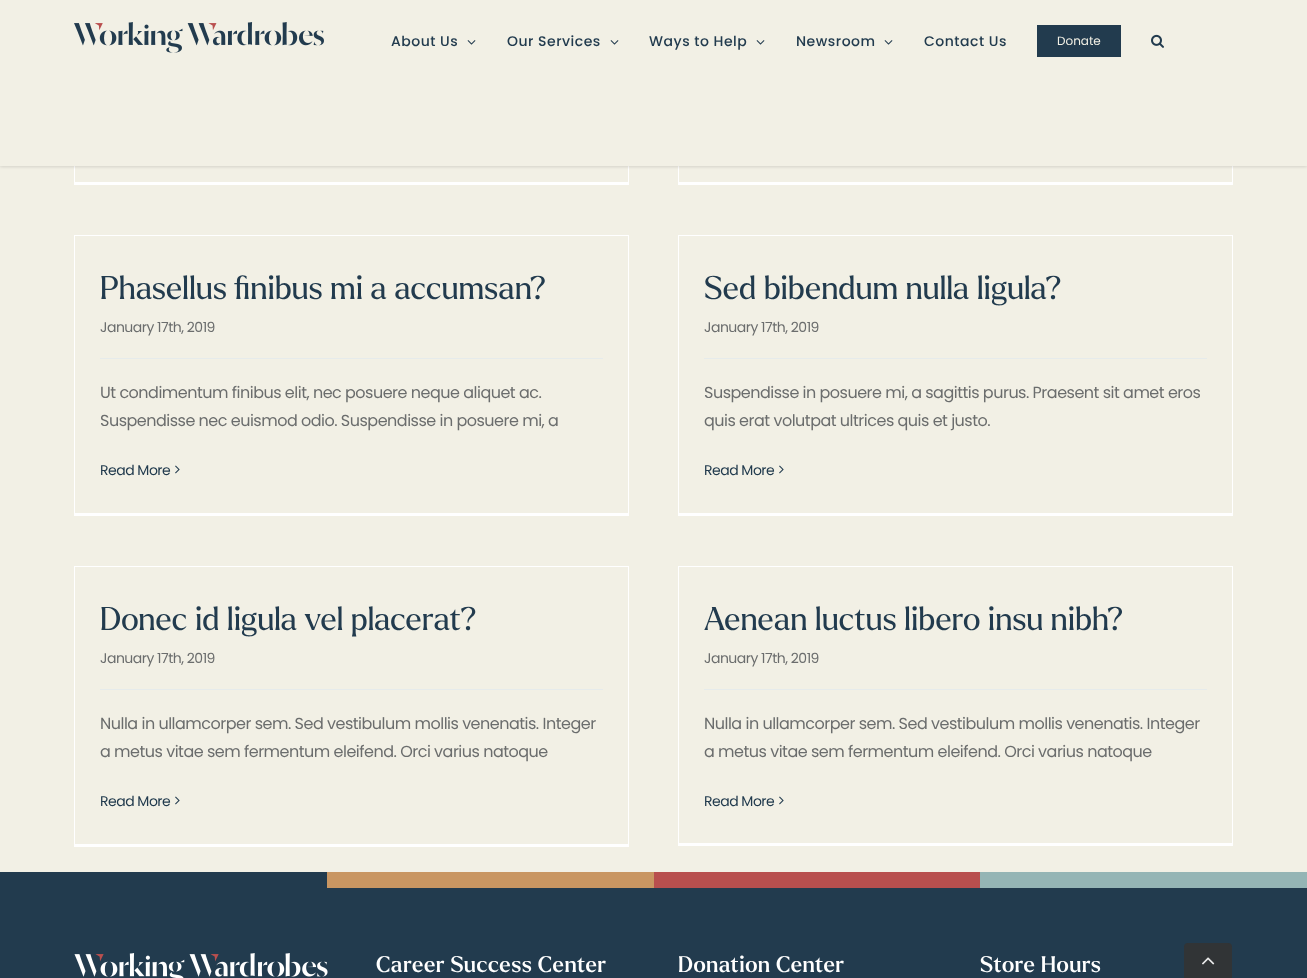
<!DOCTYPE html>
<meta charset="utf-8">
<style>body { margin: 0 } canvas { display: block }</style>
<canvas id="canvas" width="1307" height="978"></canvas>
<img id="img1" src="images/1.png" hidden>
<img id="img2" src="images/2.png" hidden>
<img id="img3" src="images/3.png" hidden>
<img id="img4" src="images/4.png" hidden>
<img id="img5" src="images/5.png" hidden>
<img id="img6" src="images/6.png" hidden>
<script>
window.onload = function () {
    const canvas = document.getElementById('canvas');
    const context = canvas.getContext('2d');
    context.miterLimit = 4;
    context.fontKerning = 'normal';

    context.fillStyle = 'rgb(242, 240, 229)';
    context.fillRect(0, 0, 1307, 978);
    context.fillStyle = 'rgb(255, 255, 255)';
    context.fillRect(628, 166, 1, 19);
    context.fillRect(74, 182, 555, 3);
    context.fillRect(74, 166, 1, 19);
    context.fillRect(1232, 166, 1, 19);
    context.fillRect(678, 182, 555, 3);
    context.fillRect(678, 166, 1, 19);
    context.fillStyle = 'rgba(0, 0, 0, 0.12)';
    context.filter = 'blur(1.5px)';
    context.beginPath();
    context.rect(0, 1, 1307, 166);
    context.fill();
    context.filter = 'none';
    context.fillStyle = 'rgb(242, 240, 229)';
    context.fillRect(0, 0, 1307, 166);
    context.drawImage(document.getElementById('img1'), 74, 22, 250, 31);
    context.drawImage(document.getElementById('img2'), 467, 40, 9, 5);
    context.drawImage(document.getElementById('img2'), 610, 40, 9, 5);
    context.drawImage(document.getElementById('img2'), 756, 40, 9, 5);
    context.drawImage(document.getElementById('img2'), 884, 40, 9, 5);
    context.fillStyle = 'rgb(34, 59, 78)';
    context.fillRect(1037, 25, 84, 32);
    context.drawImage(document.getElementById('img3'), 1151, 34, 13, 14);
    context.fillStyle = 'rgb(255, 255, 255)';
    context.fillRect(74, 235, 555, 1);
    context.fillRect(628, 235, 1, 281);
    context.fillRect(74, 513, 555, 3);
    context.fillRect(74, 235, 1, 281);
    context.fillStyle = 'rgb(230, 235, 235)';
    context.fillRect(100, 358, 503, 1);
    context.drawImage(document.getElementById('img4'), 175, 465, 5, 9);
    context.fillStyle = 'rgb(255, 255, 255)';
    context.fillRect(678, 235, 555, 1);
    context.fillRect(1232, 235, 1, 281);
    context.fillRect(678, 513, 555, 3);
    context.fillRect(678, 235, 1, 281);
    context.fillStyle = 'rgb(230, 235, 235)';
    context.fillRect(704, 358, 503, 1);
    context.drawImage(document.getElementById('img4'), 779, 465, 5, 9);
    context.fillStyle = 'rgb(255, 255, 255)';
    context.fillRect(74, 566, 555, 1);
    context.fillRect(628, 566, 1, 281);
    context.fillRect(74, 844, 555, 3);
    context.fillRect(74, 566, 1, 281);
    context.fillStyle = 'rgb(230, 235, 235)';
    context.fillRect(100, 689, 503, 1);
    context.drawImage(document.getElementById('img4'), 175, 796, 5, 9);
    context.fillStyle = 'rgb(255, 255, 255)';
    context.fillRect(678, 566, 555, 1);
    context.fillRect(1232, 566, 1, 280);
    context.fillRect(678, 843, 555, 3);
    context.fillRect(678, 566, 1, 280);
    context.fillStyle = 'rgb(230, 235, 235)';
    context.fillRect(704, 689, 503, 1);
    context.drawImage(document.getElementById('img4'), 779, 796, 5, 9);
    context.fillStyle = 'rgb(34, 59, 78)';
    context.fillRect(0, 872, 327, 16);
    context.fillStyle = 'rgb(201, 150, 98)';
    context.fillRect(327, 872, 327, 16);
    context.fillStyle = 'rgb(184, 79, 78)';
    context.fillRect(654, 872, 326, 16);
    context.fillStyle = 'rgb(149, 181, 181)';
    context.fillRect(980, 872, 327, 16);
    context.fillStyle = 'rgb(34, 59, 78)';
    context.fillRect(0, 888, 1307, 90);
    context.drawImage(document.getElementById('img5'), 74, 953, 254, 25);
    context.fillStyle = 'rgb(49, 52, 54)';
    context.beginPath();
    context.roundRect(1184, 943, 48, 35, [4, 4, 0, 0]);
    context.fill();
    context.drawImage(document.getElementById('img6'), 1202, 957, 13, 8);
    context.letterSpacing = '0.5px';
    context.font = '500 14px Poppins';
    context.fillStyle = 'rgb(34, 59, 78)';
    context.fillText('About Us', 391, 46);
    context.fillText('Our Services', 507, 46);
    context.fillText('Ways to Help', 649, 46);
    context.fillText('Newsroom', 796, 46);
    context.fillText('Contact Us', 924, 46);
    context.letterSpacing = '0px';
    context.font = '12px Poppins';
    context.fillStyle = 'rgb(242, 240, 229)';
    context.fillText('Donate', 1057, 45);
    context.font = '32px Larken';
    context.fillStyle = 'rgb(34, 59, 78)';
    context.fillText('Phasellus finibus mi a accumsan?', 100, 299);
    context.letterSpacing = '-0.5px';
    context.font = '14px Poppins';
    context.fillStyle = 'rgb(107, 109, 109)';
    context.fillText('January 17th, 2019', 100, 332);
    context.font = '16px Poppins';
    context.fillText('Ut condimentum finibus elit, nec posuere neque aliquet ac.', 100, 398);
    context.fillText('Suspendisse nec euismod odio. Suspendisse in posuere mi, a', 100, 426);
    context.font = '14px Poppins';
    context.fillStyle = 'rgb(34, 59, 78)';
    context.fillText('Read More', 100, 475);
    context.letterSpacing = '0px';
    context.font = '32px Larken';
    context.fillText('Sed bibendum nulla ligula?', 704, 299);
    context.letterSpacing = '-0.5px';
    context.font = '14px Poppins';
    context.fillStyle = 'rgb(107, 109, 109)';
    context.fillText('January 17th, 2019', 704, 332);
    context.font = '16px Poppins';
    context.fillText('Suspendisse in posuere mi, a sagittis purus. Praesent sit amet eros', 704, 398);
    context.fillText('quis erat volutpat ultrices quis et justo.', 704, 426);
    context.font = '14px Poppins';
    context.fillStyle = 'rgb(34, 59, 78)';
    context.fillText('Read More', 704, 475);
    context.letterSpacing = '0px';
    context.font = '32px Larken';
    context.fillText('Donec id ligula vel placerat?', 100, 630);
    context.letterSpacing = '-0.5px';
    context.font = '14px Poppins';
    context.fillStyle = 'rgb(107, 109, 109)';
    context.fillText('January 17th, 2019', 100, 663);
    context.font = '16px Poppins';
    context.fillText('Nulla in ullamcorper sem. Sed vestibulum mollis venenatis. Integer', 100, 729);
    context.fillText('a metus vitae sem fermentum eleifend. Orci varius natoque', 100, 757);
    context.font = '14px Poppins';
    context.fillStyle = 'rgb(34, 59, 78)';
    context.fillText('Read More', 100, 806);
    context.letterSpacing = '0px';
    context.font = '32px Larken';
    context.fillText('Aenean luctus libero insu nibh?', 704, 630);
    context.letterSpacing = '-0.5px';
    context.font = '14px Poppins';
    context.fillStyle = 'rgb(107, 109, 109)';
    context.fillText('January 17th, 2019', 704, 663);
    context.font = '16px Poppins';
    context.fillText('Nulla in ullamcorper sem. Sed vestibulum mollis venenatis. Integer', 704, 729);
    context.fillText('a metus vitae sem fermentum eleifend. Orci varius natoque', 704, 757);
    context.font = '14px Poppins';
    context.fillStyle = 'rgb(34, 59, 78)';
    context.fillText('Read More', 704, 806);
    context.letterSpacing = '0.5px';
    context.font = '500 22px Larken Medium';
    context.fillStyle = 'rgb(255, 255, 255)';
    context.fillText('Career Success Center', 376, 972);
    context.fillText('Donation Center', 678, 972);
    context.fillText('Store Hours', 980, 972);
};
</script>
